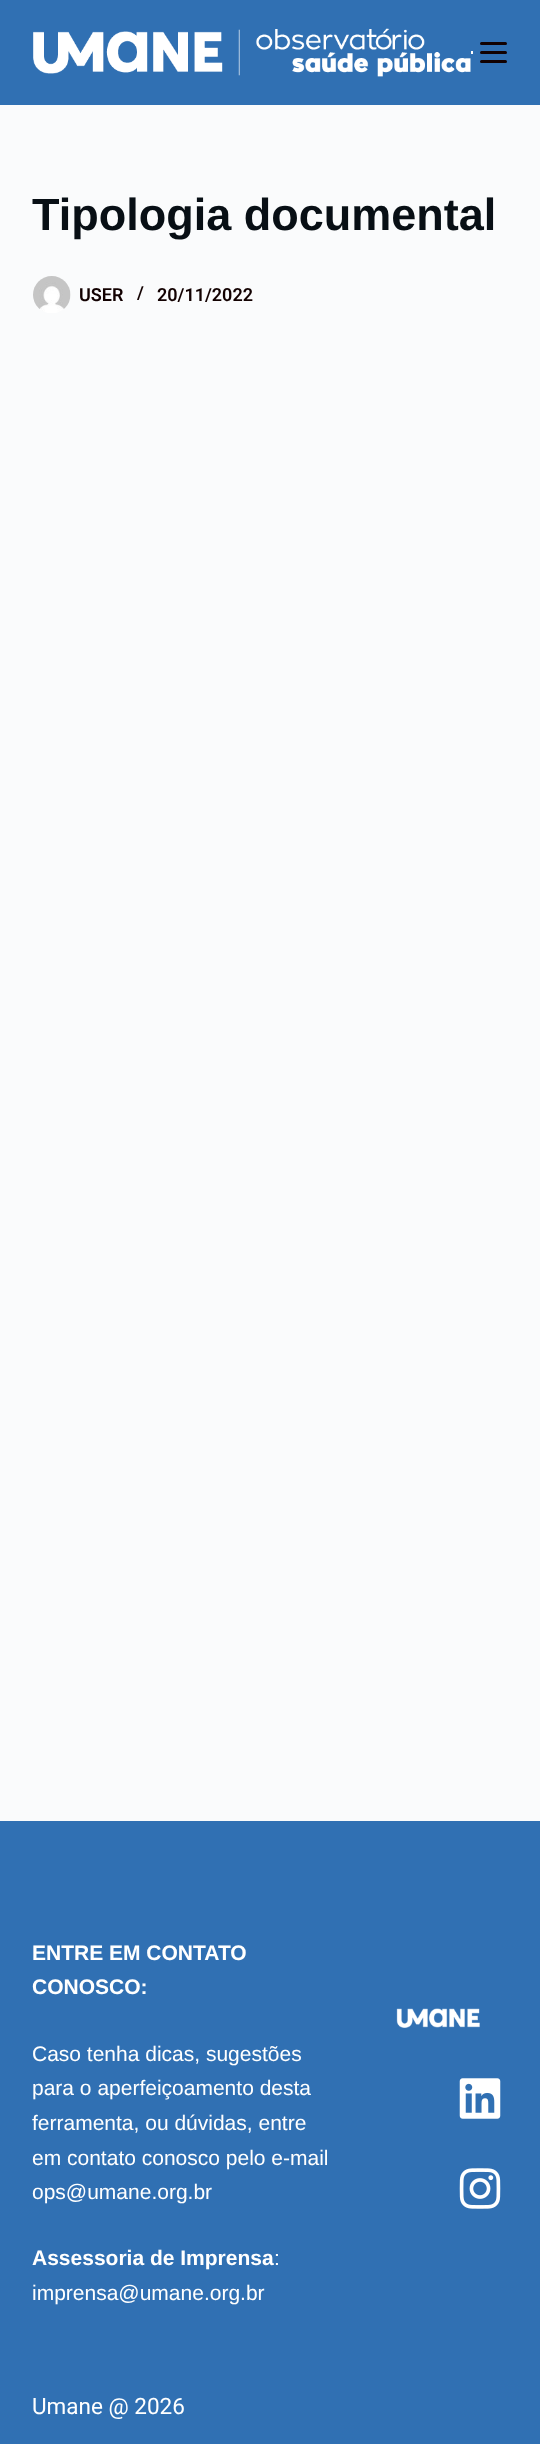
<!DOCTYPE html>
<meta charset="utf-8">
<style>body { margin: 0 } canvas { display: block }</style>
<canvas id="canvas" width="540" height="2444"></canvas>
<img id="img1" src="images/1.png" hidden>
<img id="img2" src="images/2.png" hidden>
<img id="img3" src="images/3.png" hidden>
<img id="img4" src="images/4.png" hidden>
<img id="img5" src="images/5.png" hidden>
<script>
window.onload = function () {
    const canvas = document.getElementById('canvas');
    const context = canvas.getContext('2d');
    context.miterLimit = 4;
    context.fontKerning = 'normal';

    context.fillStyle = 'rgb(250, 251, 252)';
    context.fillRect(0, 0, 540, 2444);
    context.fillStyle = 'rgb(48, 112, 179)';
    context.fillRect(0, 0, 540, 105);
    context.fillStyle = 'rgb(255, 255, 255)';
    context.beginPath();
    context.moveTo(471, 54);
    context.lineTo(473, 54);
    context.lineTo(473, 51);
    context.lineTo(471, 51);
    context.closePath();
    context.fill();
    context.drawImage(document.getElementById('img1'), 33, 28, 438, 49);
    context.fillStyle = 'rgb(18, 1, 1)';
    context.beginPath();
    context.roundRect(480, 42, 27, 3, 1.5);
    context.fill();
    context.beginPath();
    context.roundRect(480, 51, 27, 3, 1.5);
    context.fill();
    context.beginPath();
    context.roundRect(480, 60, 27, 3, 1.5);
    context.fill();
    context.drawImage(document.getElementById('img2'), 33, 276, 38, 37);
    context.fillStyle = 'rgb(48, 112, 179)';
    context.fillRect(0, 1821, 540, 623);
    context.drawImage(document.getElementById('img3'), 396, 2008, 84, 20);
    context.drawImage(document.getElementById('img4'), 459, 2078, 42, 41);
    context.drawImage(document.getElementById('img5'), 459, 2168, 42, 41);
    context.font = 'bold 45px Liberation Sans';
    context.fillStyle = 'rgb(8, 15, 21)';
    context.fillText('Tipologia documental', 32, 230);
    context.font = '600 18px Roboto';
    context.fillStyle = 'rgb(18, 1, 1)';
    context.fillText('USER', 79, 301);
    context.fillText('/', 137, 299);
    context.fillText('20/11/2022', 157, 301);
    context.font = 'bold 21px Liberation Sans';
    context.fillStyle = 'rgb(255, 255, 255)';
    context.fillText('ENTRE EM CONTATO', 32, 1960);
    context.fillText('CONOSCO:', 32, 1994);
    context.font = '21px Liberation Sans';
    context.fillText('Caso tenha dicas, sugestões', 32, 2061);
    context.fillText('para o aperfeiçoamento desta', 32, 2095);
    context.fillText('ferramenta, ou dúvidas, entre', 32, 2130);
    context.fillText('em contato conosco pelo e-mail', 32, 2165);
    context.fillText('ops@umane.org.br', 32, 2199);
    context.font = 'bold 21px Liberation Sans';
    context.fillText('Assessoria de Imprensa', 32, 2265);
    context.font = '21px Liberation Sans';
    context.fillText(':', 274, 2265);
    context.fillText('imprensa@umane.org.br', 32, 2300);
    context.font = '22.5px Roboto';
    context.fillText('Umane @ 2026', 32, 2414);
};
</script>
